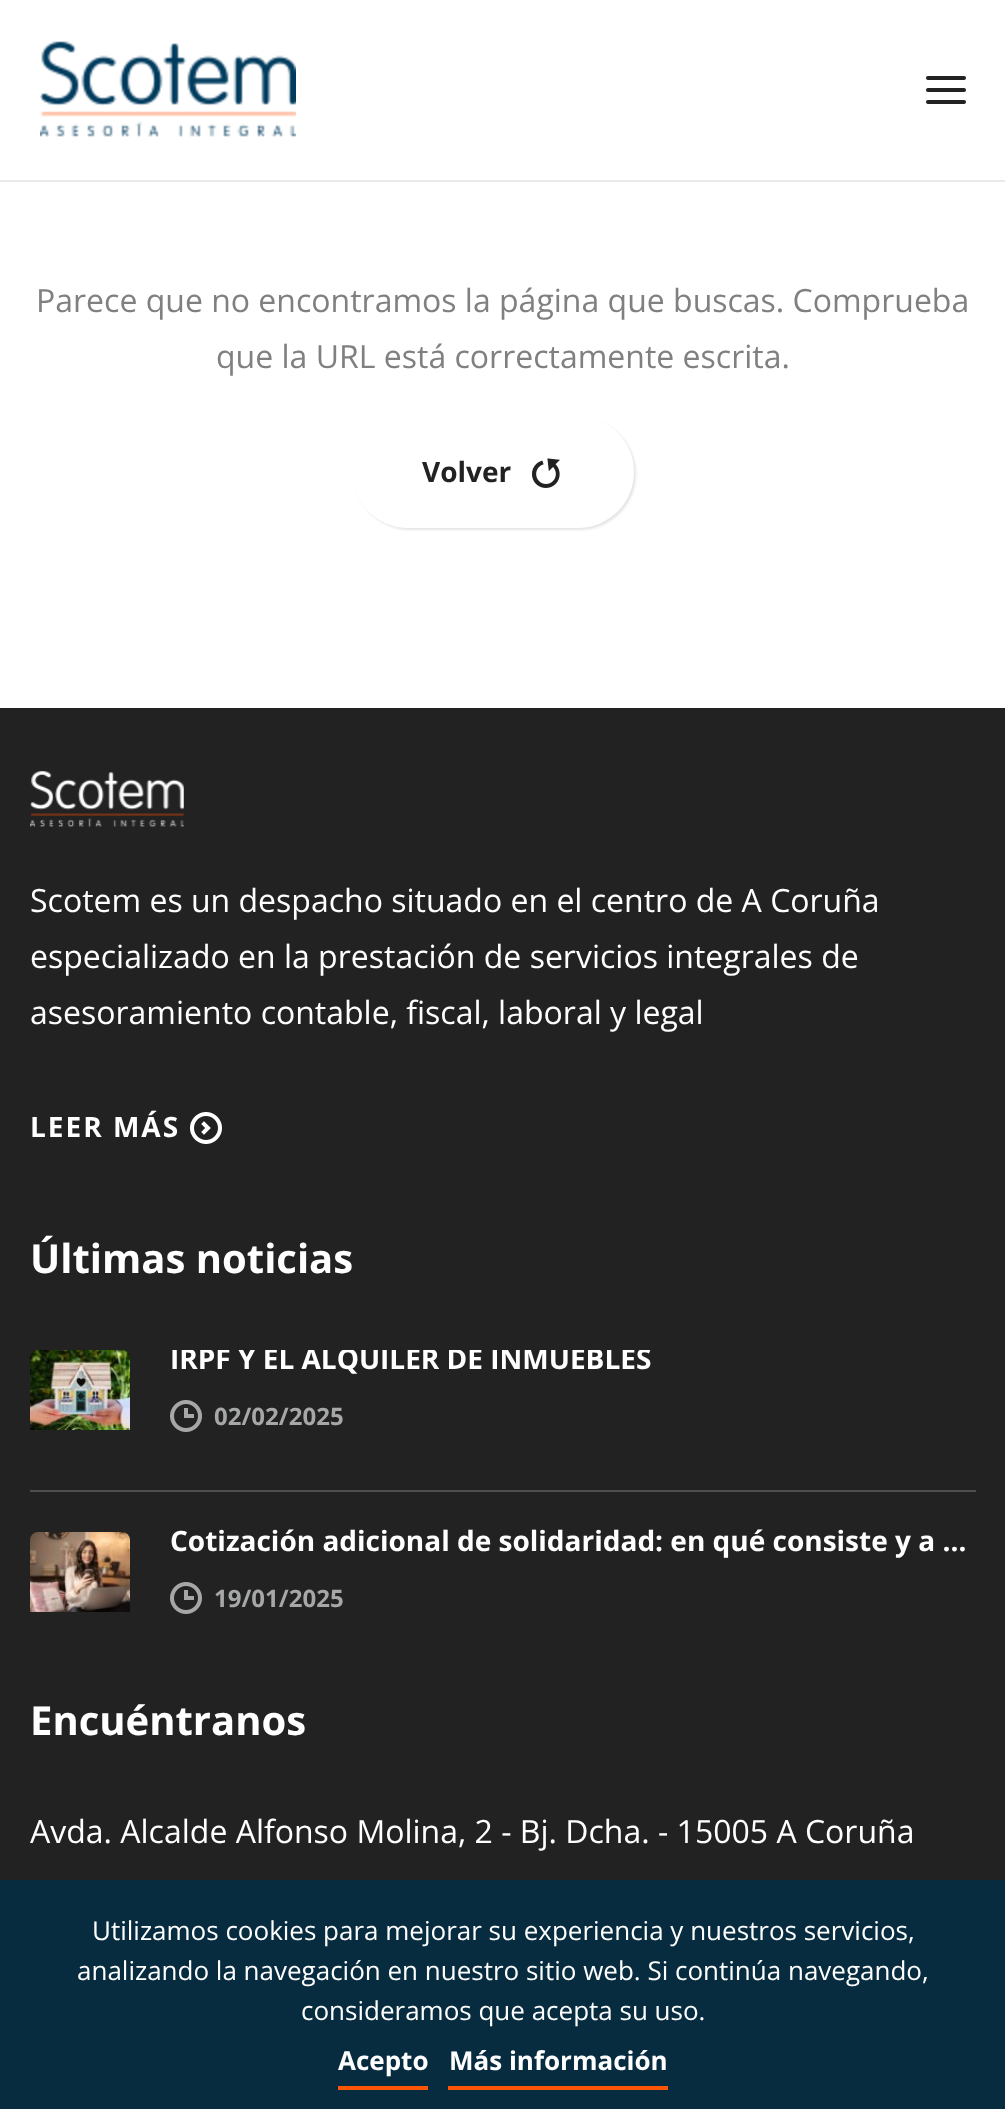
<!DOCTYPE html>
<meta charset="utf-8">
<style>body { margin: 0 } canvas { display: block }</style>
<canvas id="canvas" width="1005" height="2109"></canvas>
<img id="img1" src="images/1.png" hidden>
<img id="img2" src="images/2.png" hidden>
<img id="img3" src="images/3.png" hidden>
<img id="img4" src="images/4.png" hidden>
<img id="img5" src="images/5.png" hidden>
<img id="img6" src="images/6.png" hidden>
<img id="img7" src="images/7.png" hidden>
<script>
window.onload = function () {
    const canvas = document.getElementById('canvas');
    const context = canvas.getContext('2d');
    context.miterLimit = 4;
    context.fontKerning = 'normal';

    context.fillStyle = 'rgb(255, 255, 255)';
    context.fillRect(0, 0, 1005, 2109);
    context.fillStyle = 'rgb(234, 234, 234)';
    context.fillRect(0, 180, 1005, 2);
    context.drawImage(document.getElementById('img1'), 40, 41, 256, 96);
    context.fillStyle = 'rgb(34, 34, 34)';
    context.beginPath();
    context.roundRect(926, 88, 40, 4, 2);
    context.fill();
    context.beginPath();
    context.roundRect(926, 76, 40, 4, 2);
    context.fill();
    context.beginPath();
    context.roundRect(926, 100, 40, 4, 2);
    context.fill();
    context.fillStyle = 'rgba(0, 0, 0, 0.1)';
    context.filter = 'blur(1px)';
    context.beginPath();
    context.roundRect(354, 418, 282, 112, 56);
    context.fill();
    context.filter = 'none';
    context.fillStyle = 'rgb(255, 255, 255)';
    context.beginPath();
    context.roundRect(352, 416, 282, 112, 56);
    context.fill();
    context.drawImage(document.getElementById('img2'), 531, 458, 29, 30);
    context.fillStyle = 'rgb(34, 34, 34)';
    context.fillRect(0, 708, 1005, 1172);
    context.drawImage(document.getElementById('img3'), 30, 771, 154, 56);
    context.drawImage(document.getElementById('img4'), 190, 1112, 32, 32);
    context.drawImage(document.getElementById('img5'), 30, 1350, 100, 80);
    context.drawImage(document.getElementById('img6'), 170, 1400, 32, 32);
    context.fillStyle = 'rgb(78, 78, 78)';
    context.fillRect(30, 1490, 946, 2);
    context.drawImage(document.getElementById('img7'), 30, 1532, 100, 80);
    context.drawImage(document.getElementById('img6'), 170, 1582, 32, 32);
    context.fillStyle = 'rgb(7, 44, 63)';
    context.fillRect(0, 1880, 1005, 229);
    context.fillStyle = 'rgb(255, 85, 6)';
    context.fillRect(338, 2086, 90, 4);
    context.fillRect(448, 2086, 220, 4);
    context.font = '32px Open Sans';
    context.fillStyle = 'rgb(128, 128, 128)';
    context.fillText('Parece que no encontramos la página que buscas. Comprueba', 36, 312);
    context.fillText('que la URL está correctamente escrita.', 216, 368);
    context.font = 'bold 28px Open Sans';
    context.fillStyle = 'rgb(34, 34, 34)';
    context.fillText('Volver', 422, 482);
    context.font = '32px Open Sans';
    context.fillStyle = 'rgb(255, 255, 255)';
    context.fillText('Scotem es un despacho situado en el centro de A Coruña', 30, 912);
    context.fillText('especializado en la prestación de servicios integrales de', 30, 968);
    context.fillText('asesoramiento contable, fiscal, laboral y legal', 30, 1024);
    context.letterSpacing = '2px';
    context.font = 'bold 28px Open Sans';
    context.fillText('LEER MÁS', 30, 1137);
    context.letterSpacing = '0px';
    context.font = 'bold 40px Open Sans';
    context.fillText('Últimas noticias', 30, 1273);
    context.save();
    context.beginPath();
    context.rect(170, 1350, 806, 32);
    context.clip();
    context.font = 'bold 28px Open Sans';
    context.fillText('IRPF Y EL ALQUILER DE INMUEBLES', 170, 1369);
    context.restore();
    context.font = 'bold 24px Open Sans';
    context.fillStyle = 'rgb(166, 167, 167)';
    context.fillText('02/02/2025', 214, 1425);
    context.font = 'bold 28px Open Sans';
    context.fillStyle = 'rgb(255, 255, 255)';
    context.fillText('Cotización adicional de solidaridad: en qué consiste y a …', 170, 1551);
    context.font = 'bold 24px Open Sans';
    context.fillStyle = 'rgb(166, 167, 167)';
    context.fillText('19/01/2025', 214, 1607);
    context.font = 'bold 40px Open Sans';
    context.fillStyle = 'rgb(255, 255, 255)';
    context.fillText('Encuéntranos', 30, 1735);
    context.font = '32px Open Sans';
    context.fillText('Avda. Alcalde Alfonso Molina, 2 - Bj. Dcha. - 15005 A Coruña', 30, 1843);
    context.font = '26px Open Sans';
    context.fillText('Utilizamos cookies para mejorar su experiencia y nuestros servicios,', 92, 1940);
    context.fillText('analizando la navegación en nuestro sitio web. Si continúa navegando,', 77, 1980);
    context.fillText('consideramos que acepta su uso.', 301, 2020);
    context.font = 'bold 26px Open Sans';
    context.fillText('Acepto', 338, 2070);
    context.fillText('Más información', 449, 2070);
};
</script>
